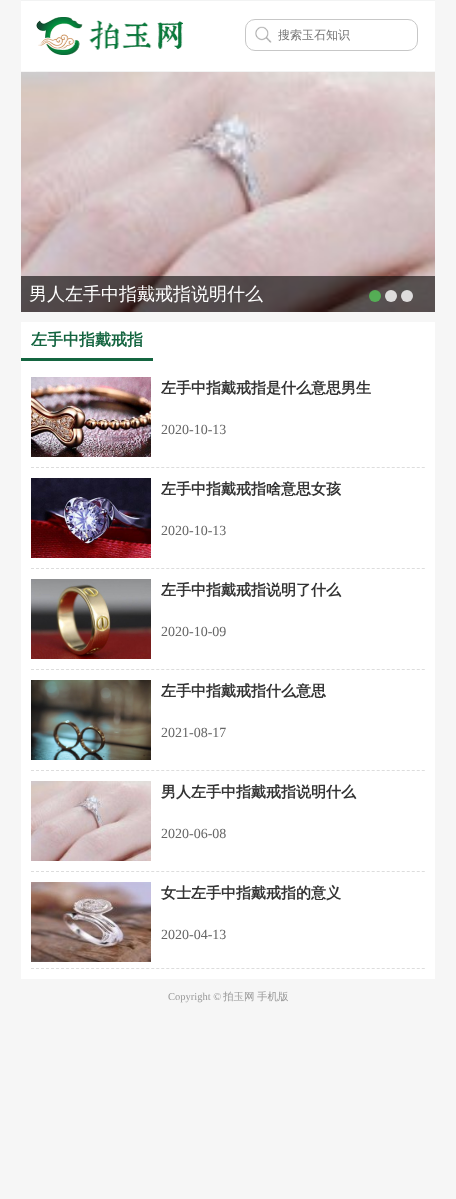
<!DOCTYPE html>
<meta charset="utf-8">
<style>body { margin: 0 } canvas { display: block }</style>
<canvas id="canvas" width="456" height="1199"></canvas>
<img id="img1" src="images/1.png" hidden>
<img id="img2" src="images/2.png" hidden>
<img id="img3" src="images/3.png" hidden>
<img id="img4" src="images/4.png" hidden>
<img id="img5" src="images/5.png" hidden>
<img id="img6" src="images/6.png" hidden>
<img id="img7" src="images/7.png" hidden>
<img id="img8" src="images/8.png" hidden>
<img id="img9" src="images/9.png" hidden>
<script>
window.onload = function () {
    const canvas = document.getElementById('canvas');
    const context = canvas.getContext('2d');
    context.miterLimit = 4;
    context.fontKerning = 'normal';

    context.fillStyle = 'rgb(246, 246, 246)';
    context.fillRect(0, 0, 456, 1199);
    context.fillStyle = 'rgb(255, 255, 255)';
    context.fillRect(21, 1, 414, 70);
    context.fillStyle = 'rgb(242, 243, 243)';
    context.fillRect(21, 0, 414, 1);
    context.fillRect(36, 71, 380, 1);
    context.drawImage(document.getElementById('img1'), 36, 17, 147, 38);
    context.drawImage(document.getElementById('img2'), 255, 26, 17, 17);
    context.beginPath();
    context.roundRect(245.5, 19.5, 172, 31, 9.5);
    context.strokeStyle = 'rgb(199, 199, 199)';
    context.stroke();
    context.drawImage(document.getElementById('img3'), 21, 72, 414, 240);
    context.fillStyle = 'rgba(0, 0, 0, 0.6)';
    context.fillRect(21, 276, 414, 36);
    context.fillStyle = 'rgba(85, 198, 88, 0.8)';
    context.beginPath();
    context.arc(375, 296, 6, 0, 2 * Math.PI);
    context.fill();
    context.fillStyle = 'rgba(255, 255, 255, 0.8)';
    context.beginPath();
    context.arc(391, 296, 6, 0, 2 * Math.PI);
    context.fill();
    context.beginPath();
    context.arc(407, 296, 6, 0, 2 * Math.PI);
    context.fill();
    context.fillStyle = 'rgb(255, 255, 255)';
    context.fillRect(21, 322, 414, 657);
    context.fillStyle = 'rgb(20, 101, 64)';
    context.fillRect(21, 358, 132, 3);
    context.beginPath();
    context.moveTo(31, 467.5);
    context.lineTo(425, 467.5);
    context.strokeStyle = 'rgb(221, 221, 221)';
    context.setLineDash([3, 2.01]);
    context.stroke();
    context.drawImage(document.getElementById('img4'), 31, 377, 120, 80);
    context.beginPath();
    context.moveTo(31, 568.5);
    context.lineTo(425, 568.5);
    context.stroke();
    context.drawImage(document.getElementById('img5'), 31, 478, 120, 80);
    context.beginPath();
    context.moveTo(31, 669.5);
    context.lineTo(425, 669.5);
    context.stroke();
    context.drawImage(document.getElementById('img6'), 31, 579, 120, 80);
    context.beginPath();
    context.moveTo(31, 770.5);
    context.lineTo(425, 770.5);
    context.stroke();
    context.drawImage(document.getElementById('img7'), 31, 680, 120, 80);
    context.beginPath();
    context.moveTo(31, 871.5);
    context.lineTo(425, 871.5);
    context.stroke();
    context.drawImage(document.getElementById('img8'), 31, 781, 120, 80);
    context.beginPath();
    context.moveTo(31, 968.5);
    context.lineTo(425, 968.5);
    context.stroke();
    context.drawImage(document.getElementById('img9'), 31, 882, 120, 80);
    context.font = '500 12px WenQuanYi Zen Hei';
    context.fillStyle = 'rgb(117, 117, 117)';
    context.fillText('搜索玉石知识', 278, 39);
    context.font = '500 18px WenQuanYi Zen Hei';
    context.fillStyle = 'rgb(255, 255, 255)';
    context.fillText('男人左手中指戴戒指说明什么', 29, 300);
    context.font = 'bold 16px WenQuanYi Zen Hei';
    context.fillStyle = 'rgb(20, 101, 64)';
    context.fillText('左手中指戴戒指', 31, 345);
    context.font = 'bold 15px WenQuanYi Zen Hei';
    context.fillStyle = 'rgb(51, 51, 51)';
    context.fillText('左手中指戴戒指是什么意思男生', 161, 393);
    context.font = '14px Liberation Serif';
    context.fillStyle = 'rgb(102, 102, 102)';
    context.fillText('2020-10-13', 161, 434);
    context.font = 'bold 15px WenQuanYi Zen Hei';
    context.fillStyle = 'rgb(51, 51, 51)';
    context.fillText('左手中指戴戒指啥意思女孩', 161, 494);
    context.font = '14px Liberation Serif';
    context.fillStyle = 'rgb(102, 102, 102)';
    context.fillText('2020-10-13', 161, 535);
    context.font = 'bold 15px WenQuanYi Zen Hei';
    context.fillStyle = 'rgb(51, 51, 51)';
    context.fillText('左手中指戴戒指说明了什么', 161, 595);
    context.font = '14px Liberation Serif';
    context.fillStyle = 'rgb(102, 102, 102)';
    context.fillText('2020-10-09', 161, 636);
    context.font = 'bold 15px WenQuanYi Zen Hei';
    context.fillStyle = 'rgb(51, 51, 51)';
    context.fillText('左手中指戴戒指什么意思', 161, 696);
    context.font = '14px Liberation Serif';
    context.fillStyle = 'rgb(102, 102, 102)';
    context.fillText('2021-08-17', 161, 737);
    context.font = 'bold 15px WenQuanYi Zen Hei';
    context.fillStyle = 'rgb(51, 51, 51)';
    context.fillText('男人左手中指戴戒指说明什么', 161, 797);
    context.font = '14px Liberation Serif';
    context.fillStyle = 'rgb(102, 102, 102)';
    context.fillText('2020-06-08', 161, 838);
    context.font = 'bold 15px WenQuanYi Zen Hei';
    context.fillStyle = 'rgb(51, 51, 51)';
    context.fillText('女士左手中指戴戒指的意义', 161, 898);
    context.font = '14px Liberation Serif';
    context.fillStyle = 'rgb(102, 102, 102)';
    context.fillText('2020-04-13', 161, 939);
    context.font = '10.5px Liberation Serif';
    context.fillStyle = 'rgb(153, 153, 153)';
    context.fillText('Copyright ©', 168, 1000);
    context.font = '500 10.5px WenQuanYi Zen Hei';
    context.fillText('拍玉网', 223, 1000);
    context.fillText('手机版', 257, 1000);
};
</script>
